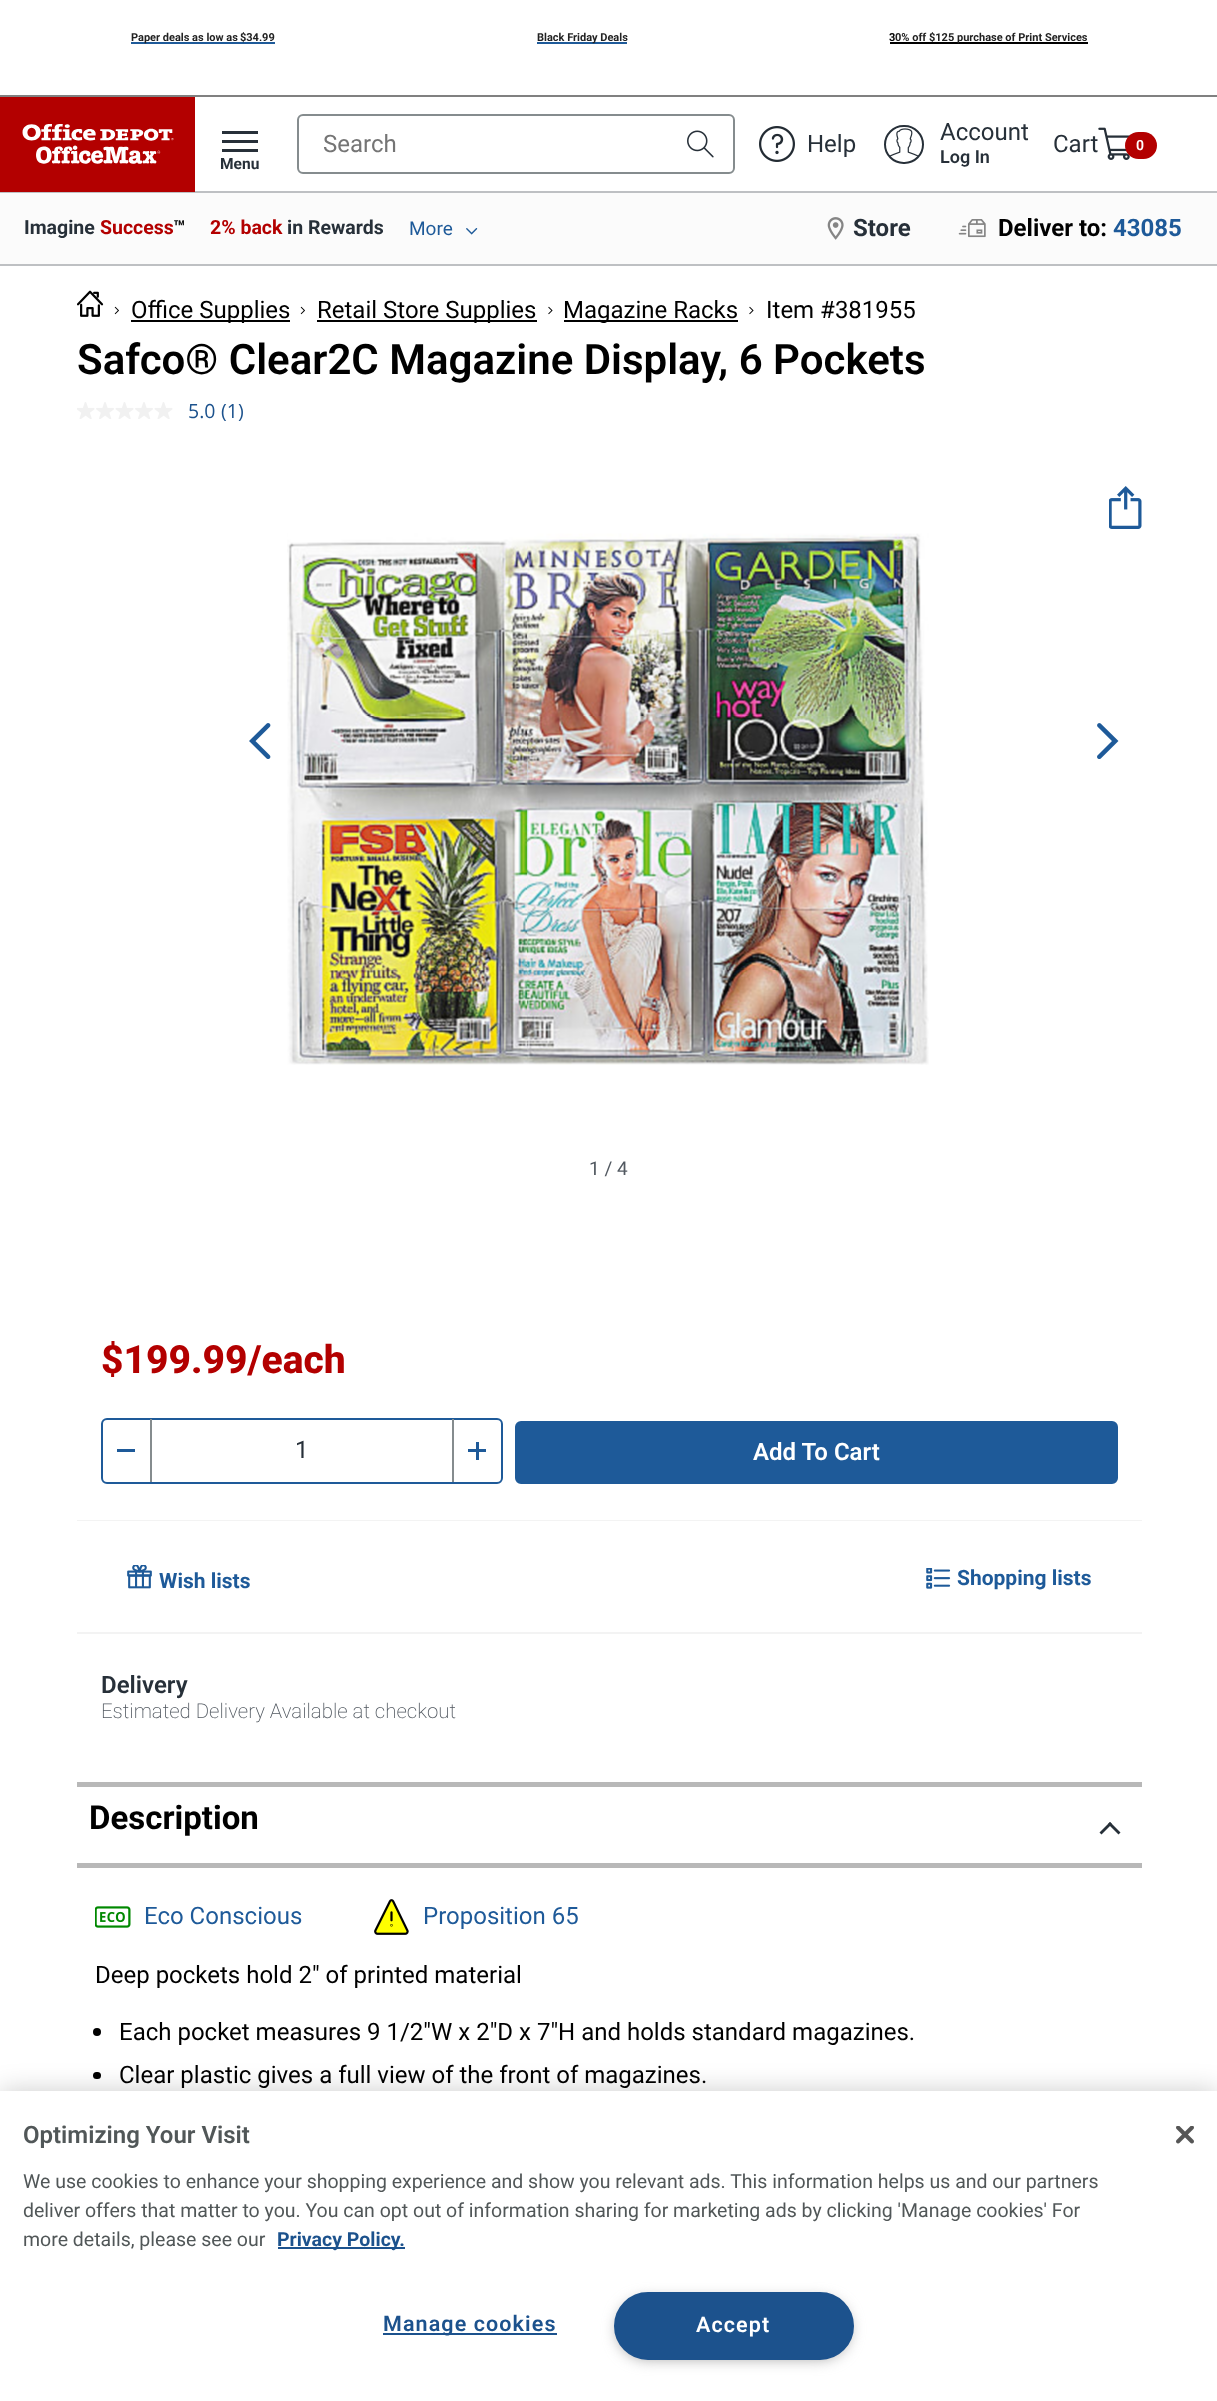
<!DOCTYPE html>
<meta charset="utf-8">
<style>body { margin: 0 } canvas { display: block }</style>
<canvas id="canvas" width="1217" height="2401"></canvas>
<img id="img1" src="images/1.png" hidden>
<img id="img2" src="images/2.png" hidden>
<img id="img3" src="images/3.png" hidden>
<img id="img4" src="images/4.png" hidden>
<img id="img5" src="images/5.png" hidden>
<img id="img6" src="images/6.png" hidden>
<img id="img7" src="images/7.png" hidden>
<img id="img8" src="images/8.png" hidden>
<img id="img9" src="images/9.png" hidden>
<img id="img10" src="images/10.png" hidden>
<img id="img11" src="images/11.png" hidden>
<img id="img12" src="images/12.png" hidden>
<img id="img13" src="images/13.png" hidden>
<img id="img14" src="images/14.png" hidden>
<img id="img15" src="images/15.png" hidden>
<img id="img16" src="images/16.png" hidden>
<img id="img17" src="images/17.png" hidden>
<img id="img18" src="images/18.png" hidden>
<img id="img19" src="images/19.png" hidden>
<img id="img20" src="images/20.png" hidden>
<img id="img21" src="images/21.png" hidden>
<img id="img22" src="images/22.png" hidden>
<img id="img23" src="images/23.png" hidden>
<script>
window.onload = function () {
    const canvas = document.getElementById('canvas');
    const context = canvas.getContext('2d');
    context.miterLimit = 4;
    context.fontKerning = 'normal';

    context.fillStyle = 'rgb(255, 255, 255)';
    context.fillRect(0, 0, 1217, 2401);
    context.fillStyle = 'rgb(128, 128, 128)';
    context.fillRect(0, 95, 1217, 2);
    context.fillStyle = 'rgb(30, 90, 153)';
    context.fillRect(131, 42, 106, 2);
    context.fillRect(537, 42, 90, 2);
    context.fillStyle = 'rgb(0, 0, 0)';
    context.fillRect(890, 42, 198, 2);
    context.fillStyle = 'rgb(190, 192, 195)';
    context.fillRect(0, 191, 1217, 2);
    context.fillStyle = 'rgb(179, 0, 0)';
    context.fillRect(0, 97, 195, 95);
    context.drawImage(document.getElementById('img1'), 22, 124, 152, 40);
    context.beginPath();
    context.roundRect(298, 115, 436, 58, 5);
    context.strokeStyle = 'rgb(133, 140, 142)';
    context.lineWidth = 2;
    context.stroke();
    context.drawImage(document.getElementById('img2'), 687, 130, 27, 28);
    context.drawImage(document.getElementById('img3'), 759, 126, 36, 36);
    context.beginPath();
    context.roundRect(885, 126, 38, 37, 18.5);
    context.strokeStyle = 'rgb(39, 48, 57)';
    context.stroke();
    context.drawImage(document.getElementById('img4'), 889, 128, 30, 29);
    context.drawImage(document.getElementById('img5'), 1098, 127, 32, 33);
    context.beginPath();
    context.roundRect(1125, 132, 32, 27, 13.5);
    context.fill();
    context.fillStyle = 'rgb(39, 48, 57)';
    context.fillRect(222, 131, 36, 3);
    context.fillRect(222, 140, 36, 3);
    context.fillRect(222, 149, 36, 3);
    context.fillStyle = 'rgb(251, 251, 251)';
    context.fillRect(0, 193, 1217, 71);
    context.fillStyle = 'rgb(190, 192, 195)';
    context.fillRect(0, 264, 1217, 2);
    context.drawImage(document.getElementById('img6'), 466, 228, 12, 7);
    context.drawImage(document.getElementById('img7'), 827, 217, 17, 23);
    context.drawImage(document.getElementById('img8'), 958, 219, 28, 19);
    context.drawImage(document.getElementById('img9'), 77, 290, 27, 27);
    context.drawImage(document.getElementById('img10'), 114, 306, 5, 9);
    context.fillStyle = 'rgb(0, 0, 0)';
    context.fillRect(131, 320, 159, 2);
    context.drawImage(document.getElementById('img10'), 300, 306, 5, 9);
    context.fillRect(317, 320, 220, 2);
    context.drawImage(document.getElementById('img11'), 548, 306, 5, 9);
    context.fillRect(564, 320, 174, 2);
    context.drawImage(document.getElementById('img11'), 749, 306, 5, 9);
    context.drawImage(document.getElementById('img12'), 77, 402, 18, 17);
    context.drawImage(document.getElementById('img13'), 96, 402, 18, 17);
    context.drawImage(document.getElementById('img14'), 115, 402, 19, 17);
    context.drawImage(document.getElementById('img13'), 135, 402, 18, 17);
    context.drawImage(document.getElementById('img14'), 154, 402, 19, 17);
    context.drawImage(document.getElementById('img15'), 1109, 486, 33, 43);
    context.drawImage(document.getElementById('img16'), 287, 533, 642, 532);
    context.drawImage(document.getElementById('img17'), 249, 723, 22, 36);
    context.drawImage(document.getElementById('img18'), 1097, 723, 22, 36);
    context.fillStyle = 'rgb(243, 243, 243)';
    context.fillRect(77, 1520, 1065, 1);
    context.beginPath();
    context.roundRect(102, 1419, 400, 64, 5);
    context.strokeStyle = 'rgb(30, 90, 153)';
    context.stroke();
    context.fillStyle = 'rgb(30, 90, 153)';
    context.fillRect(117, 1449, 18, 3);
    context.fillStyle = 'rgb(133, 140, 142)';
    context.fillRect(452, 1419, 2, 63);
    context.fillRect(150, 1419, 2, 63);
    context.fillStyle = 'rgb(30, 90, 153)';
    context.fillRect(468, 1449, 18, 3);
    context.fillRect(476, 1442, 3, 18);
    context.beginPath();
    context.roundRect(516, 1422, 601, 61, 5);
    context.fill();
    context.stroke();
    context.drawImage(document.getElementById('img19'), 127, 1565, 25, 24);
    context.drawImage(document.getElementById('img20'), 926, 1568, 25, 21);
    context.fillStyle = 'rgb(243, 243, 243)';
    context.fillRect(77, 1632, 1065, 2);
    context.fillStyle = 'rgb(184, 184, 184)';
    context.fillRect(77, 1782, 1065, 5);
    context.fillRect(77, 1863, 1065, 5);
    context.fillStyle = 'rgb(39, 48, 57)';
    context.beginPath();
    context.moveTo(1112, 1824);
    context.lineTo(1101.5, 1834.5);
    context.lineTo(1099.5, 1832.5);
    context.lineTo(1110, 1822);
    context.closePath();
    context.fill();
    context.beginPath();
    context.moveTo(1120.5, 1832.5);
    context.lineTo(1118.5, 1834.5);
    context.lineTo(1108, 1824);
    context.lineTo(1110, 1822);
    context.closePath();
    context.fill();
    context.drawImage(document.getElementById('img21'), 95, 1906, 36, 22);
    context.drawImage(document.getElementById('img22'), 374, 1899, 35, 36);
    context.fillStyle = 'rgb(0, 0, 0)';
    context.beginPath();
    context.arc(97, 2032, 4, 0, 2 * Math.PI);
    context.fill();
    context.beginPath();
    context.roundRect(93, 2072, 8, 7, 3.5);
    context.fill();
    context.fillStyle = 'rgba(0, 0, 0, 0.2)';
    context.filter = 'blur(13.5px)';
    context.beginPath();
    context.rect(0, 2091, 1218, 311);
    context.fill();
    context.filter = 'none';
    context.fillStyle = 'rgb(255, 255, 255)';
    context.fillRect(0, 2091, 1217, 310);
    context.fillStyle = 'rgb(28, 82, 141)';
    context.fillRect(278, 2247, 127, 2);
    context.fillRect(383, 2333, 174, 2);
    context.fillStyle = 'rgb(153, 153, 153)';
    context.filter = 'blur(7.5px)';
    context.beginPath();
    context.roundRect(618, 2300, 231, 58, 29);
    context.fill();
    context.filter = 'none';
    context.fillStyle = 'rgb(28, 82, 141)';
    context.beginPath();
    context.roundRect(615, 2293, 238, 66, 33);
    context.fill();
    context.strokeStyle = 'rgb(28, 82, 141)';
    context.stroke();
    context.drawImage(document.getElementById('img23'), 1176, 2126, 18, 18);
    context.font = 'bold 11px Roboto';
    context.fillStyle = 'rgb(34, 34, 34)';
    context.fillText('Paper deals as low as', 131, 41);
    context.fillStyle = 'rgb(30, 90, 153)';
    context.fillRect(237, 42, 38, 2);
    context.fillStyle = 'rgb(34, 34, 34)';
    context.fillText('$34.99', 240, 41);
    context.fillText('Black Friday Deals', 537, 41);
    context.fillStyle = 'rgb(0, 0, 0)';
    context.fillText('3', 889, 41);
    context.fillStyle = 'rgb(34, 34, 34)';
    context.fillText('0% off $125 purchase of Print Services', 895, 41);
    context.font = '24px Roboto';
    context.fillStyle = 'rgb(117, 117, 117)';
    context.fillText('Search', 323, 152);
    context.fillStyle = 'rgb(39, 48, 57)';
    context.fillText('Help', 807, 152);
    context.fillText('Account', 940, 140);
    context.font = '600 18px Roboto';
    context.fillText('Log In', 940, 163);
    context.font = '24px Roboto';
    context.fillText('Cart', 1053, 152);
    context.font = '600 14px Roboto';
    context.fillStyle = 'rgb(255, 255, 255)';
    context.fillText('0', 1136, 150);
    context.font = 'bold 15.5px Roboto';
    context.fillStyle = 'rgb(39, 48, 57)';
    context.fillText('Menu', 220, 169);
    context.font = 'bold 19.5px Roboto';
    context.fillText('Imagine', 24, 234);
    context.fillStyle = 'rgb(179, 0, 0)';
    context.fillText('Success', 100, 234);
    context.fillStyle = 'rgb(0, 0, 0)';
    context.fillText('™', 173, 234);
    context.fillStyle = 'rgb(179, 0, 0)';
    context.fillText('2% back', 210, 234);
    context.fillStyle = 'rgb(39, 48, 57)';
    context.fillText('in Rewards', 287, 234);
    context.font = '19px Roboto';
    context.fillStyle = 'rgb(30, 90, 153)';
    context.fillText('More', 409, 235);
    context.font = 'bold 24px Roboto';
    context.fillStyle = 'rgb(39, 48, 57)';
    context.fillText('Store', 853, 236);
    context.fillStyle = 'rgb(0, 0, 0)';
    context.fillText('Deliver to:', 998, 236);
    context.fillStyle = 'rgb(30, 90, 153)';
    context.fillText('43085', 1113, 236);
    context.font = '24px Roboto';
    context.fillStyle = 'rgb(0, 0, 0)';
    context.fillText('Office Supplies', 131, 318);
    context.fillText('Retail Store Supplies', 317, 318);
    context.fillText('Magazine Racks', 563, 318);
    context.fillText('Item #381955', 766, 318);
    context.font = '600 42px Roboto';
    context.fillText('Safco® Clear2C Magazine Display, 6 Pockets', 77, 374);
    context.font = '19.5px Open Sans';
    context.fillStyle = 'rgb(28, 82, 141)';
    context.fillText('5.0', 188, 418);
    context.fillText('(1)', 221, 418);
    context.font = '19px Roboto';
    context.fillStyle = 'rgb(82, 89, 97)';
    context.fillText('1 / 4', 589, 1175);
    context.font = '800 39px Roboto';
    context.fillStyle = 'rgb(179, 0, 0)';
    context.fillText('$199.99/each', 101, 1373);
    context.font = '24px Roboto';
    context.fillStyle = 'rgb(39, 48, 57)';
    context.fillText('1', 295, 1458);
    context.font = '600 24px Roboto';
    context.fillStyle = 'rgb(255, 255, 255)';
    context.fillText('Add To Cart', 753, 1460);
    context.font = 'bold 21px Roboto';
    context.fillStyle = 'rgb(30, 90, 153)';
    context.fillText('Wish lists', 159, 1588);
    context.fillText('Shopping lists', 957, 1585);
    context.font = '600 24px Roboto';
    context.fillStyle = 'rgb(39, 48, 57)';
    context.fillText('Delivery', 101, 1693);
    context.font = '200 20.4px Roboto';
    context.fillStyle = 'rgb(82, 89, 97)';
    context.fillText('Estimated Delivery Available at checkout', 101, 1718);
    context.font = 'bold 33px Roboto';
    context.fillStyle = 'rgb(0, 0, 0)';
    context.fillText('Description', 89, 1829);
    context.font = '24px Roboto';
    context.fillStyle = 'rgb(30, 90, 153)';
    context.fillText('Eco Conscious', 144, 1924);
    context.fillText('Proposition 65', 423, 1924);
    context.fillStyle = 'rgb(0, 0, 0)';
    context.fillText('Deep pockets hold 2" of printed material', 95, 1983);
    context.fillText('Each pocket measures 9 1/2"W x 2"D x 7"H and holds standard magazines.', 119, 2040);
    context.fillText('Clear plastic gives a full view of the front of magazines.', 119, 2083);
    context.font = '600 24px Roboto';
    context.fillStyle = 'rgb(81, 87, 88)';
    context.fillText('Optimizing Your Visit', 23, 2143);
    context.font = '19.5px Roboto';
    context.fillText('We use cookies to enhance your shopping experience and show you relevant ads. This information helps us and our partners', 23, 2188);
    context.fillText('deliver offers that matter to you. You can opt out of information sharing for marketing ads by clicking \'Manage cookies\' For', 23, 2217);
    context.fillText('more details, please see our', 23, 2246);
    context.font = 'bold 19.5px Roboto';
    context.fillStyle = 'rgb(28, 82, 141)';
    context.fillText('Privacy Policy.', 277, 2246);
    context.letterSpacing = '1.1px';
    context.font = '600 21.5px Roboto';
    context.fillText('Manage cookies', 383, 2331);
    context.fillStyle = 'rgb(255, 255, 255)';
    context.fillText('Accept', 696, 2332);
};
</script>
